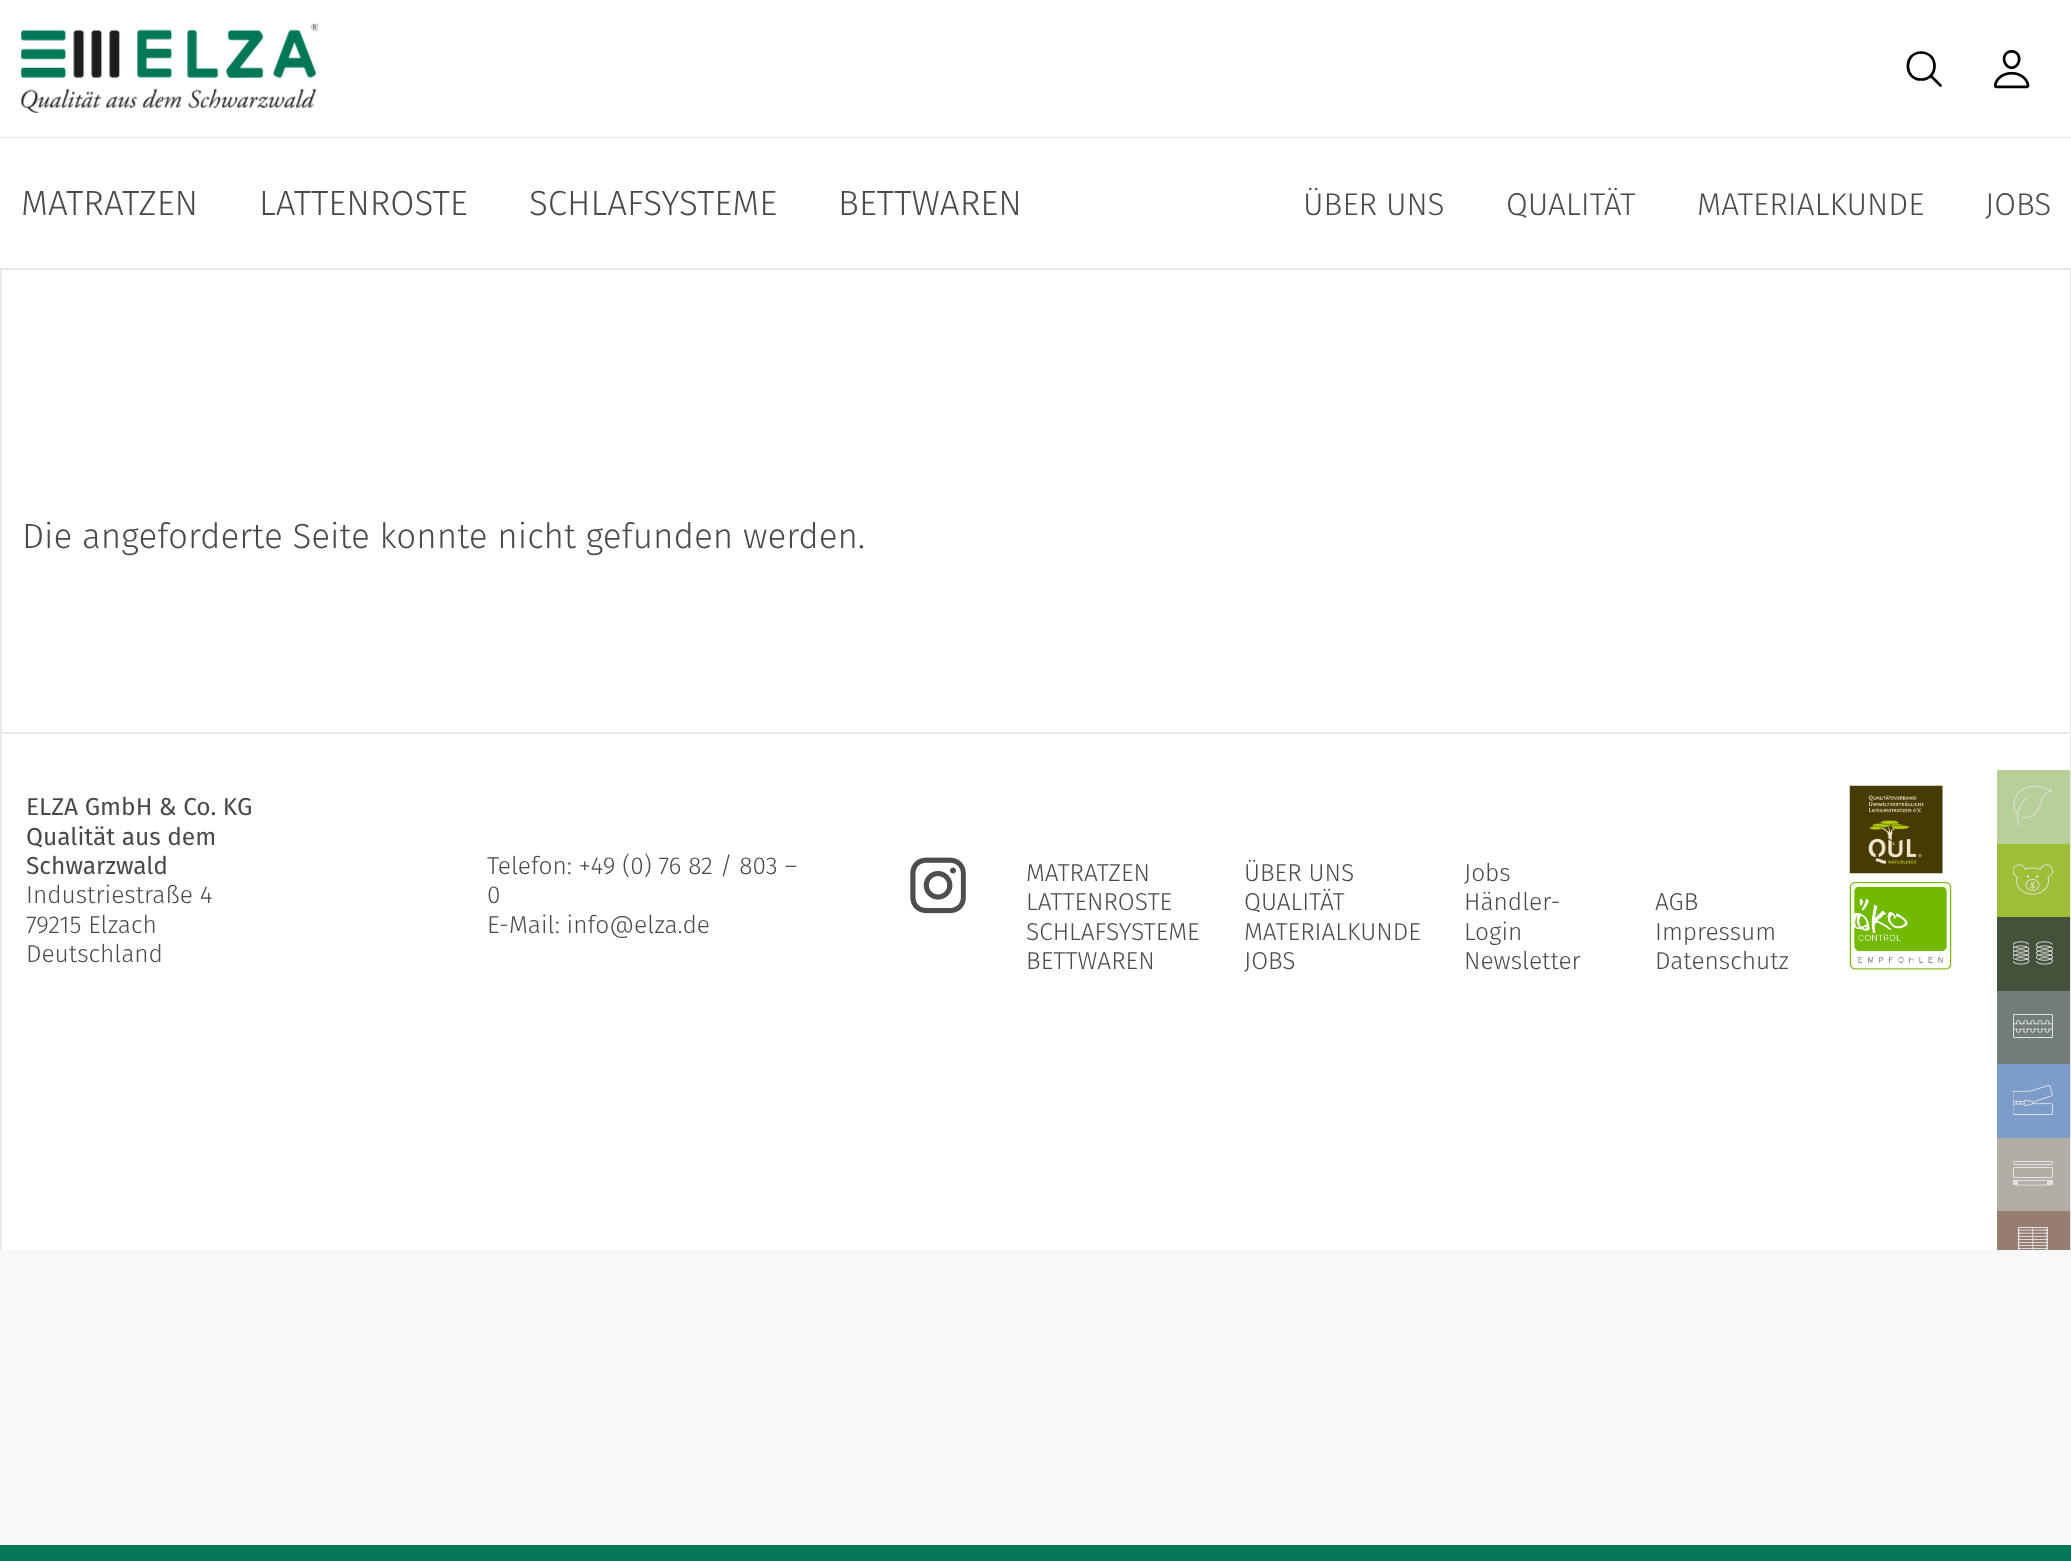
<!DOCTYPE html>
<meta charset="utf-8">
<style>body { margin: 0 } canvas { display: block }</style>
<canvas id="canvas" width="2071" height="1561"></canvas>
<img id="img1" src="images/1.png" hidden>
<img id="img2" src="images/2.png" hidden>
<img id="img3" src="images/3.png" hidden>
<img id="img4" src="images/4.png" hidden>
<img id="img5" src="images/5.png" hidden>
<img id="img6" src="images/6.png" hidden>
<img id="img7" src="images/7.png" hidden>
<img id="img8" src="images/8.png" hidden>
<img id="img9" src="images/9.png" hidden>
<img id="img10" src="images/10.png" hidden>
<img id="img11" src="images/11.png" hidden>
<img id="img12" src="images/12.png" hidden>
<script>
window.onload = function () {
    const canvas = document.getElementById('canvas');
    const context = canvas.getContext('2d');
    context.miterLimit = 4;
    context.fontKerning = 'normal';

    context.fillStyle = 'rgb(248, 248, 248)';
    context.fillRect(0, 0, 2071, 1561);
    context.fillStyle = 'rgb(255, 255, 255)';
    context.fillRect(2, 270, 2068, 980);
    context.fillStyle = 'rgb(232, 232, 232)';
    context.fillRect(2070, 270, 1, 980);
    context.fillRect(0, 270, 2, 980);
    context.fillStyle = 'rgb(255, 255, 255)';
    context.fillRect(0, 0, 2071, 137);
    context.fillStyle = 'rgb(232, 232, 232)';
    context.fillRect(0, 137, 2071, 1);
    context.drawImage(document.getElementById('img1'), 21, 23, 298, 90);
    context.beginPath();
    context.moveTo(1921, 52.5);
    context.bezierCurveTo(1903.5, 52.5, 1903.5, 79.5, 1921, 79.5);
    context.bezierCurveTo(1939, 79.5, 1939, 52.5, 1921, 52.5);
    context.closePath();
    context.strokeStyle = 'rgb(0, 0, 0)';
    context.lineWidth = 2.7;
    context.stroke();
    context.beginPath();
    context.moveTo(1931, 76);
    context.lineTo(1940.5, 85.5);
    context.lineCap = 'round';
    context.stroke();
    context.drawImage(document.getElementById('img2'), 1993, 50, 37, 39);
    context.fillStyle = 'rgb(255, 255, 255)';
    context.fillRect(0, 138, 2071, 130);
    context.fillStyle = 'rgb(232, 232, 232)';
    context.fillRect(0, 268, 2071, 2);
    context.fillRect(2, 732, 2068, 2);
    context.drawImage(document.getElementById('img3'), 910, 857, 56, 57);
    context.drawImage(document.getElementById('img4'), 1849, 785, 94, 89);
    context.drawImage(document.getElementById('img5'), 1849, 882, 103, 88);
    context.fillStyle = 'rgb(183, 207, 153)';
    context.fillRect(1997, 770, 73, 74);
    context.drawImage(document.getElementById('img6'), 2013, 786, 39, 40);
    context.fillStyle = 'rgb(159, 190, 56)';
    context.fillRect(1997, 844, 73, 73);
    context.drawImage(document.getElementById('img7'), 2013, 864, 40, 31);
    context.fillStyle = 'rgb(68, 82, 59)';
    context.fillRect(1997, 917, 73, 74);
    context.drawImage(document.getElementById('img8'), 2013, 941, 40, 24);
    context.fillStyle = 'rgb(114, 125, 119)';
    context.fillRect(1997, 991, 73, 73);
    context.drawImage(document.getElementById('img9'), 2013, 1014, 40, 24);
    context.fillStyle = 'rgb(126, 156, 202)';
    context.fillRect(1997, 1064, 73, 74);
    context.drawImage(document.getElementById('img10'), 2013, 1085, 40, 30);
    context.fillStyle = 'rgb(178, 174, 166)';
    context.fillRect(1997, 1138, 73, 73);
    context.drawImage(document.getElementById('img11'), 2013, 1161, 40, 25);
    context.fillStyle = 'rgb(149, 125, 112)';
    context.fillRect(1997, 1211, 73, 39);
    context.drawImage(document.getElementById('img12'), 2017, 1227, 31, 23);
    context.fillStyle = 'rgb(2, 120, 88)';
    context.fillRect(0, 1545, 2071, 16);
    context.font = '300 35px Fira Sans';
    context.fillStyle = 'rgb(74, 74, 73)';
    context.fillText('MATRATZEN', 21, 215);
    context.fillText('LATTENROSTE', 259, 215);
    context.fillText('SCHLAFSYSTEME', 529, 215);
    context.fillText('BETTWAREN', 838, 215);
    context.font = '300 31.5px Fira Sans';
    context.fillText('ÜBER UNS', 1303, 215);
    context.fillText('QUALITÄT', 1506, 215);
    context.fillText('MATERIALKUNDE', 1697, 215);
    context.fillText('JOBS', 1985, 215);
    context.font = '300 35px Fira Sans';
    context.fillText('Die angeforderte Seite konnte nicht gefunden werden.', 22, 548);
    context.font = '24.5px Fira Sans';
    context.fillText('ELZA GmbH & Co. KG', 26, 815);
    context.fillText('Qualität aus dem', 26, 845);
    context.fillText('Schwarzwald', 26, 874);
    context.font = '300 24.5px Fira Sans';
    context.fillText('Industriestraße 4', 26, 903);
    context.fillText('79215 Elzach', 26, 933);
    context.fillText('Deutschland', 26, 962);
    context.fillText('Telefon: +49 (0) 76 82 / 803 –', 487, 874);
    context.fillText('0', 487, 903);
    context.fillText('E-Mail: info@elza.de', 487, 933);
    context.fillText('MATRATZEN', 1026, 881);
    context.fillText('LATTENROSTE', 1026, 910);
    context.fillText('SCHLAFSYSTEME', 1026, 940);
    context.fillText('BETTWAREN', 1026, 969);
    context.fillText('ÜBER UNS', 1244, 881);
    context.fillText('QUALITÄT', 1244, 910);
    context.fillText('MATERIALKUNDE', 1244, 940);
    context.fillText('JOBS', 1244, 969);
    context.fillText('Jobs', 1464, 881);
    context.fillText('Händler-', 1464, 910);
    context.fillText('Login', 1464, 940);
    context.fillText('Newsletter', 1464, 969);
    context.fillText('AGB', 1655, 910);
    context.fillText('Impressum', 1655, 940);
    context.fillText('Datenschutz', 1655, 969);
};
</script>
